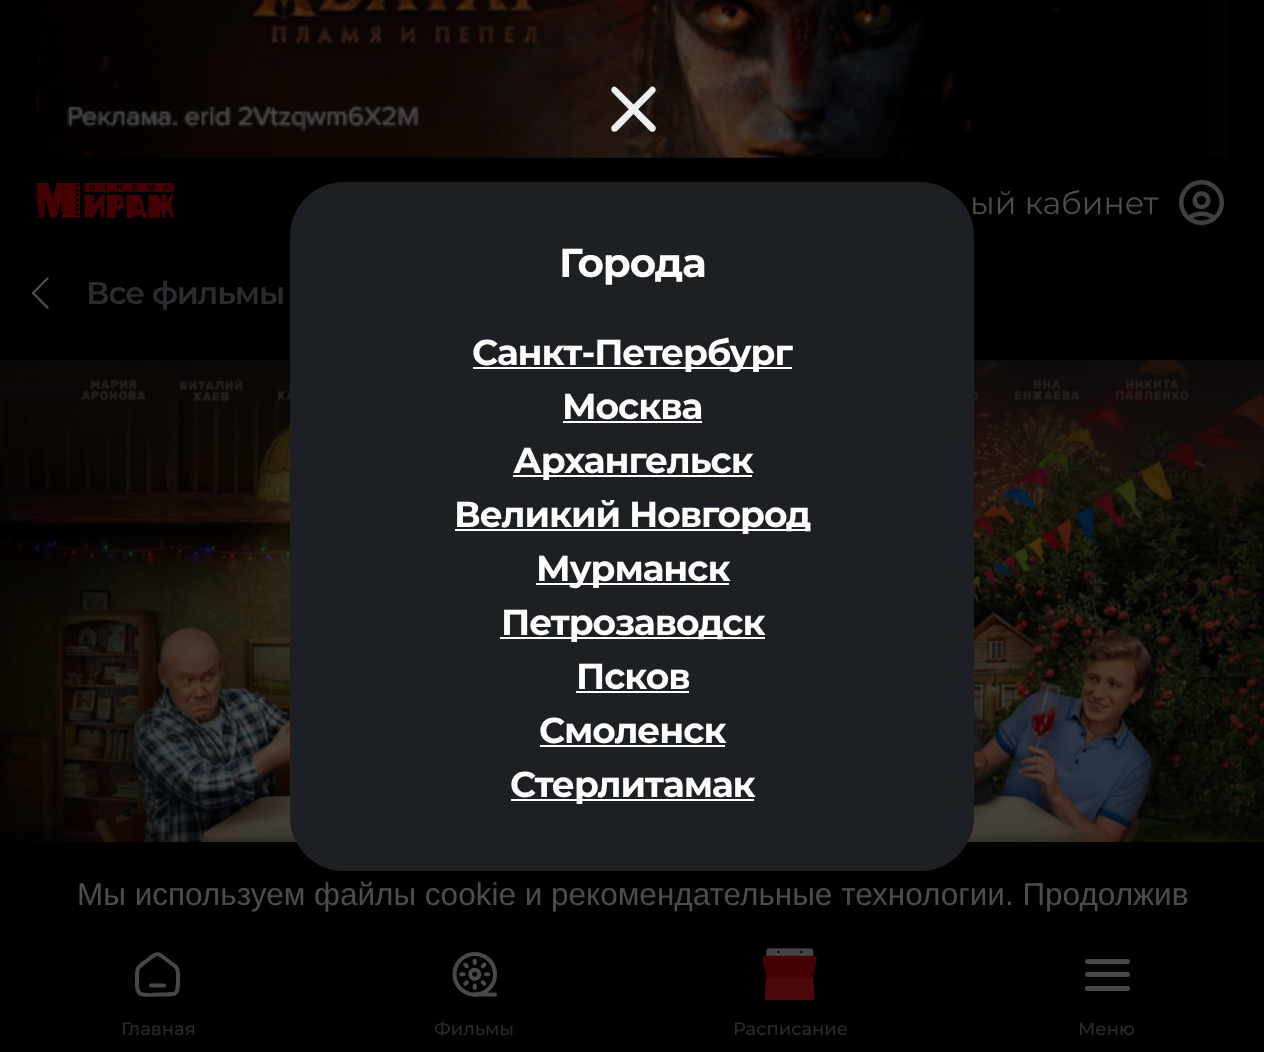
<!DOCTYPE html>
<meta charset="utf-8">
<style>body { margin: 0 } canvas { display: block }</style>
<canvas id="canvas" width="1264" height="1052"></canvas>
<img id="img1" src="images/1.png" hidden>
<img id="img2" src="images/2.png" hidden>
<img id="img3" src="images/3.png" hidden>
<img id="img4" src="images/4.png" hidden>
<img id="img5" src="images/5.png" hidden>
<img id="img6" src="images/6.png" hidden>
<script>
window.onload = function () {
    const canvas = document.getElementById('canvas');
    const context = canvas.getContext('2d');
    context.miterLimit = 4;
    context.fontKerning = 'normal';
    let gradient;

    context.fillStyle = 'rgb(0, 0, 0)';
    context.fillRect(0, 0, 1264, 1052);
    context.drawImage(document.getElementById('img1'), 36, 0, 1193, 158);
    context.drawImage(document.getElementById('img2'), 36, 183, 139, 35);
    context.drawImage(document.getElementById('img3'), 1179, 180, 45, 45);
    context.fillStyle = 'rgb(77, 77, 77)';
    context.beginPath();
    context.moveTo(49, 307.5);
    context.lineTo(47, 309);
    context.lineTo(31.5, 293);
    context.lineTo(33, 291.5);
    context.closePath();
    context.fill();
    context.beginPath();
    context.moveTo(49, 278.5);
    context.lineTo(33, 294.5);
    context.lineTo(31.5, 293);
    context.lineTo(47.5, 277);
    context.closePath();
    context.fill();
    context.drawImage(document.getElementById('img4'), 0, 360, 1264, 482);
    gradient = context.createLinearGradient(632, 360, 632, 536);
    gradient.addColorStop(0, 'rgba(8, 9, 11, 0.5)');
    gradient.addColorStop(1, 'rgba(8, 9, 11, 0)');
    context.fillStyle = gradient;
    context.fillRect(0, 360, 1264, 164);
    context.beginPath();
    context.moveTo(175, 966);
    context.lineTo(159.5, 954.5);
    context.bezierCurveTo(155.5, 953, 152, 956.5, 149, 959);
    context.bezierCurveTo(136, 969, 137, 966, 137, 982);
    context.bezierCurveTo(137, 986, 136.5, 991, 140, 993.5);
    context.bezierCurveTo(144, 996, 153, 994.5, 157.5, 994.5);
    context.bezierCurveTo(178, 994.5, 178, 996.5, 178, 976.5);
    context.bezierCurveTo(178, 973, 178.5, 968.5, 175, 966);
    context.closePath();
    context.strokeStyle = 'rgb(72, 72, 72)';
    context.lineWidth = 4;
    context.stroke();
    context.beginPath();
    context.moveTo(151, 985.5);
    context.lineTo(164, 985.5);
    context.lineCap = 'round';
    context.lineJoin = 'round';
    context.stroke();
    context.drawImage(document.getElementById('img5'), 452, 952, 45, 45);
    context.drawImage(document.getElementById('img6'), 763, 948, 54, 53);
    context.fillStyle = 'rgb(72, 72, 72)';
    context.beginPath();
    context.roundRect(1085, 972, 45, 5, 2.5);
    context.fill();
    context.beginPath();
    context.roundRect(1085, 959, 45, 5, 2.5);
    context.fill();
    context.beginPath();
    context.roundRect(1085, 986, 45, 5, 2.5);
    context.fill();
    context.fillStyle = 'rgb(239, 239, 239)';
    context.beginPath();
    context.moveTo(617, 88);
    context.lineTo(655, 126);
    context.bezierCurveTo(656, 127, 656, 129, 655, 131);
    context.bezierCurveTo(654, 132, 651, 132, 650, 131);
    context.lineTo(612, 92);
    context.bezierCurveTo(611, 91, 611, 89, 612, 88);
    context.bezierCurveTo(613, 86, 615, 86, 617, 88);
    context.closePath();
    context.fill();
    context.beginPath();
    context.moveTo(612, 126);
    context.lineTo(650, 88);
    context.bezierCurveTo(651, 86, 654, 86, 655, 88);
    context.bezierCurveTo(656, 89, 656, 91, 655, 92);
    context.lineTo(617, 131);
    context.bezierCurveTo(615, 132, 613, 132, 612, 131);
    context.bezierCurveTo(611, 129, 611, 127, 612, 126);
    context.closePath();
    context.fill();
    context.font = '31.5px Montserrat';
    context.fillStyle = 'rgb(77, 77, 77)';
    context.fillText('ый кабинет', 970, 214);
    context.letterSpacing = '-1.1px';
    context.font = '600 31.5px Montserrat';
    context.fillStyle = 'rgb(42, 44, 47)';
    context.fillText('Все фильмы', 86, 304);
    context.letterSpacing = '0px';
    context.font = '31.5px Liberation Sans';
    context.fillStyle = 'rgb(77, 77, 77)';
    context.fillText('Мы используем файлы cookie и рекомендательные технологии. Продолжив', 77, 905);
    context.font = '500 18px Montserrat';
    context.fillStyle = 'rgb(42, 44, 47)';
    context.fillText('Главная', 121, 1035);
    context.fillText('Фильмы', 434, 1035);
    context.fillText('Расписание', 733, 1035);
    context.fillText('Меню', 1078, 1035);
    context.fillStyle = 'rgb(28, 31, 35)';
    context.beginPath();
    context.roundRect(290, 182, 684, 689, 54);
    context.fill();
    context.letterSpacing = '-1.1px';
    context.font = 'bold 40.5px Montserrat';
    context.fillStyle = 'rgb(255, 255, 255)';
    context.fillText('Города', 559, 277);
    context.fillRect(473, 367, 319, 2);
    context.font = 'bold 36px Montserrat';
    context.fillText('Санкт-Петербург', 472, 365);
    context.fillText('Москва', 562, 419);
    context.fillRect(563, 421, 139, 2);
    context.fillRect(513, 475, 239, 2);
    context.fillText('Архангельск', 513, 473);
    context.fillRect(455, 529, 355, 2);
    context.fillText('Великий Новгород', 454, 527);
    context.fillRect(536, 583, 193, 2);
    context.fillText('Мурманск', 536, 581);
    context.fillRect(500, 637, 265, 2);
    context.fillText('Петрозаводск', 501, 635);
    context.fillText('Псков', 576, 689);
    context.fillRect(576, 691, 113, 2);
    context.fillText('Смоленск', 539, 743);
    context.fillRect(540, 745, 185, 2);
    context.fillRect(511, 799, 243, 2);
    context.fillText('Стерлитамак', 510, 797);
};
</script>
